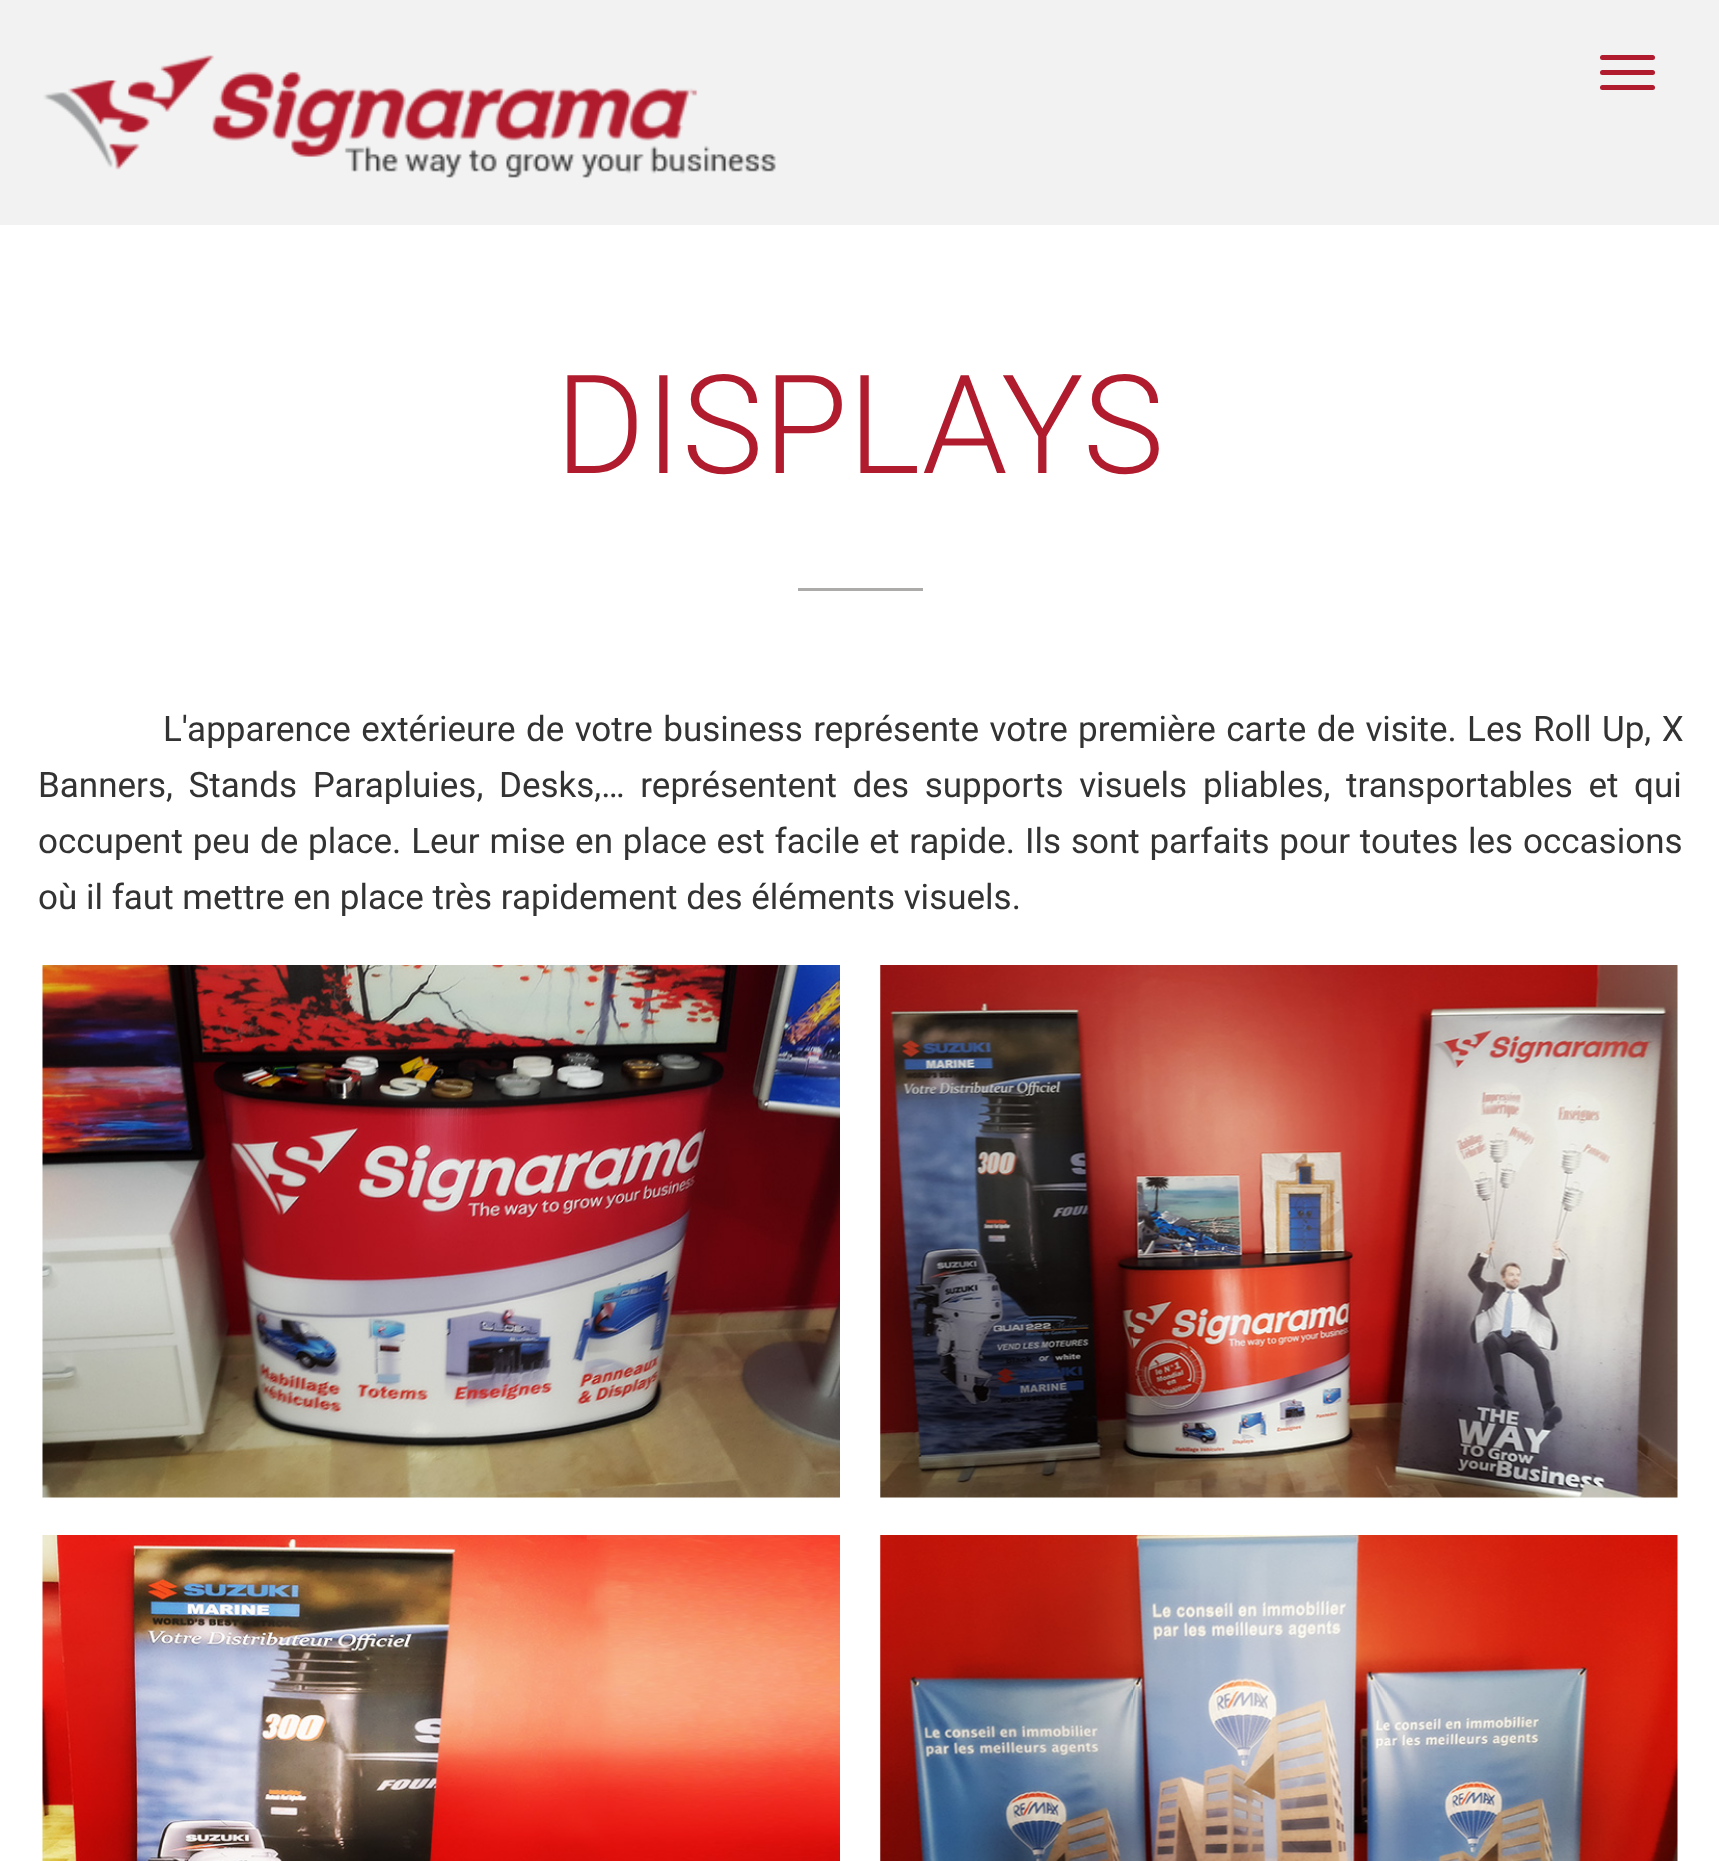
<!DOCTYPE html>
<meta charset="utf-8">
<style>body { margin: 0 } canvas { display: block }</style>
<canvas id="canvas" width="1719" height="1861"></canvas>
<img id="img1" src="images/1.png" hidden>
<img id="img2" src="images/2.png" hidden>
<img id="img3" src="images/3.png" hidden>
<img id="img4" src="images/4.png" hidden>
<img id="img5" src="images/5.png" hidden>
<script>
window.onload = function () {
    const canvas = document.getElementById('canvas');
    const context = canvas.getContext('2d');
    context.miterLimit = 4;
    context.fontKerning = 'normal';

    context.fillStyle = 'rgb(255, 255, 255)';
    context.fillRect(0, 0, 1719, 1861);
    context.fillStyle = 'rgb(242, 242, 242)';
    context.fillRect(0, 0, 1719, 225);
    context.drawImage(document.getElementById('img1'), 43, 55, 733, 123);
    context.fillStyle = 'rgb(176, 28, 46)';
    context.beginPath();
    context.roundRect(1600, 55, 55, 5, 2.5);
    context.fill();
    context.beginPath();
    context.roundRect(1600, 70, 55, 5, 2.5);
    context.fill();
    context.beginPath();
    context.roundRect(1600, 85, 55, 5, 2.5);
    context.fill();
    context.fillStyle = 'rgb(173, 170, 170)';
    context.fillRect(798, 588, 125, 3);
    context.drawImage(document.getElementById('img2'), 42, 965, 798, 533);
    context.drawImage(document.getElementById('img3'), 880, 965, 798, 533);
    context.drawImage(document.getElementById('img4'), 42, 1535, 798, 326);
    context.drawImage(document.getElementById('img5'), 880, 1535, 798, 326);
    context.font = '300 137.5px Roboto';
    context.fillStyle = 'rgb(176, 28, 46)';
    context.fillText('DISPLAYS', 555, 473);
    context.wordSpacing = '1.75px';
    context.font = '35px Roboto';
    context.fillStyle = 'rgb(51, 51, 51)';
    context.fillText('L\'apparence extérieure de votre business représente votre première carte de visite. Les Roll Up, X', 163, 741);
    context.wordSpacing = '7px';
    context.fillText('Banners, Stands Parapluies, Desks,… représentent des supports visuels', 38, 797);
    context.fillText('pliables, transportables et qui', 1203, 797);
    context.wordSpacing = '1.1px';
    context.fillText('occupent peu de place. Leur mise en place est facile et rapide.', 38, 853);
    context.fillText('Ils sont parfaits pour toutes les occasions', 1025, 853);
    context.wordSpacing = '0px';
    context.fillText('où il faut mettre en place très rapidement des éléments visuels.', 38, 909);
};
</script>
